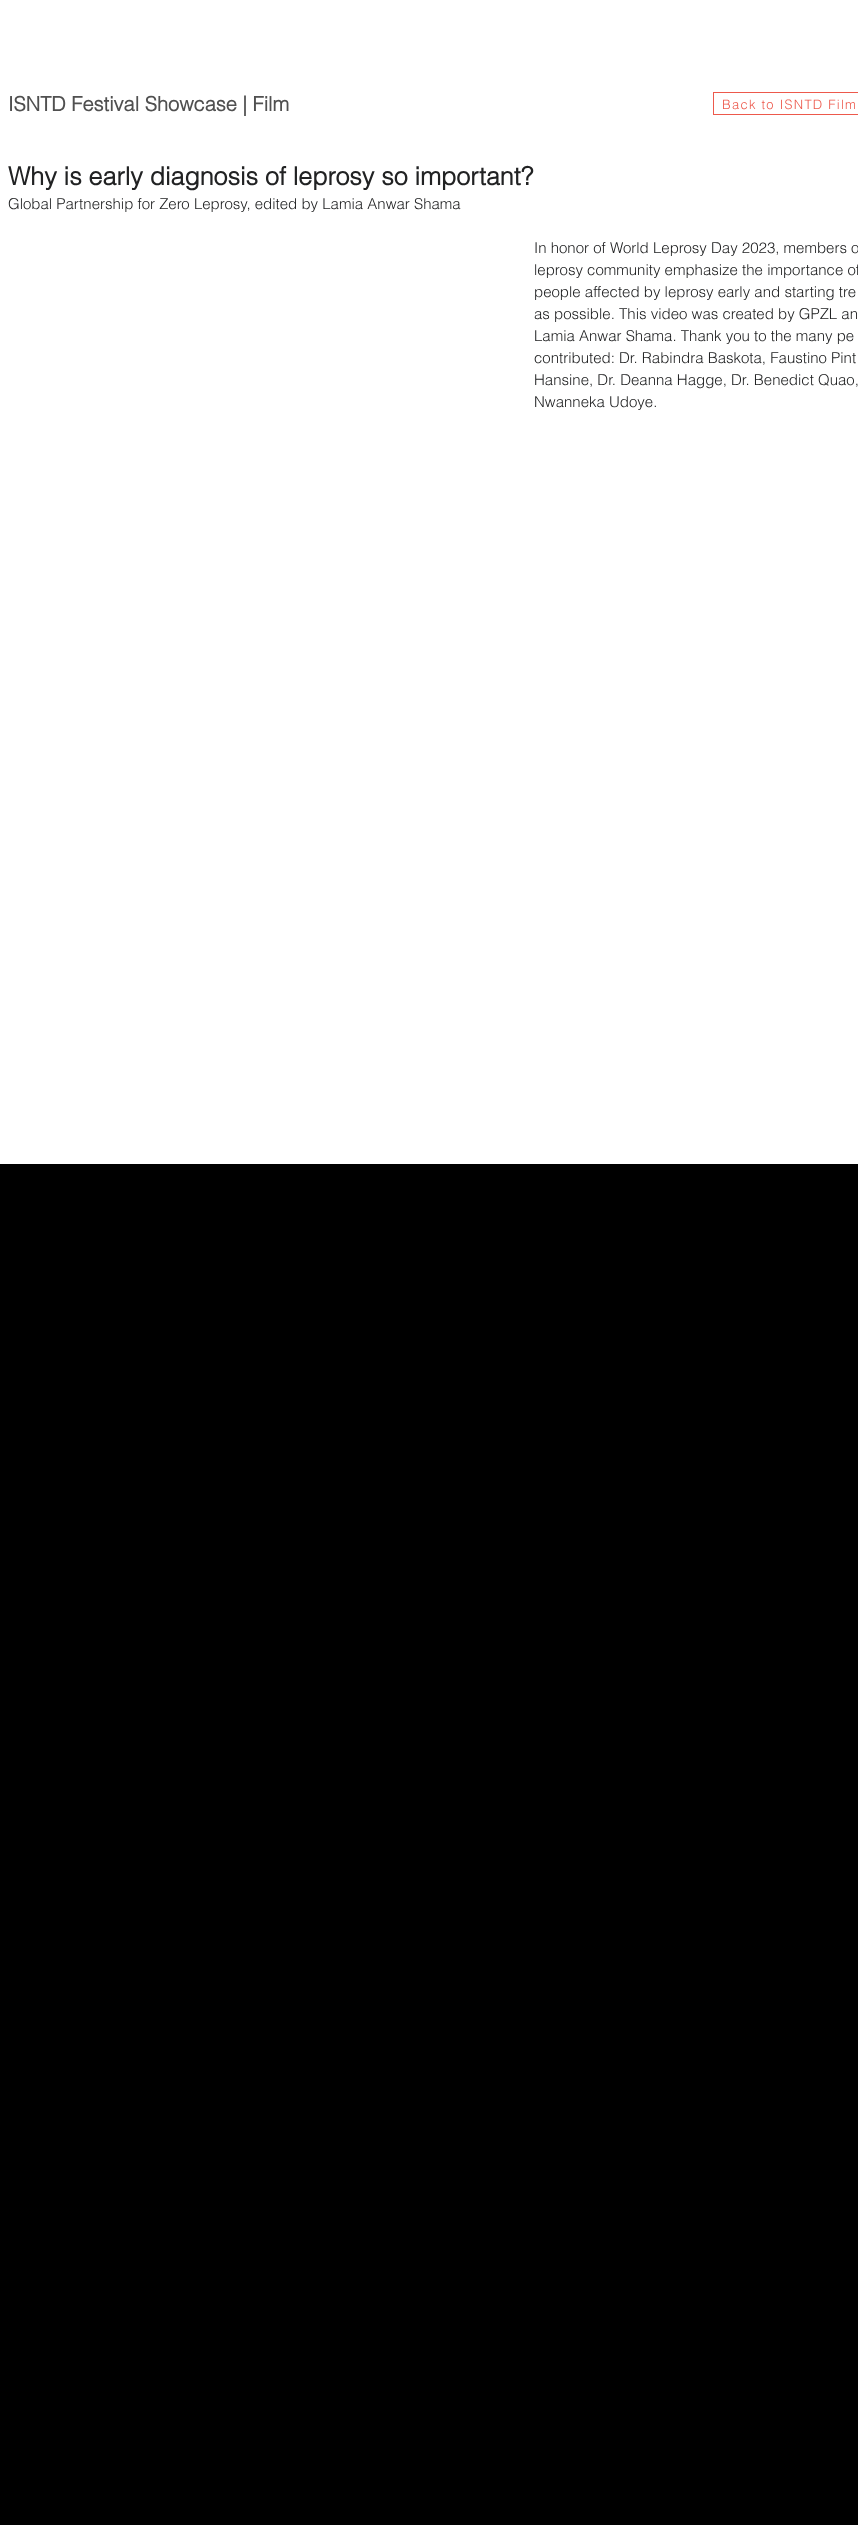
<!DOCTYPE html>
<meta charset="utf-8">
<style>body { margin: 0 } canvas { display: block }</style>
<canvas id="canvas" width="858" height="2525"></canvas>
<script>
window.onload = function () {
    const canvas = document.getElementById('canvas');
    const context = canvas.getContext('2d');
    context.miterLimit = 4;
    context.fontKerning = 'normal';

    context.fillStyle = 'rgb(0, 0, 0)';
    context.fillRect(0, 0, 858, 2525);
    context.fillStyle = 'rgb(255, 255, 255)';
    context.fillRect(0, 0, 858, 1164);
    context.strokeStyle = 'rgb(237, 89, 76)';
    context.strokeRect(713.5, 92.5, 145, 22);
    context.font = 'bold 20px helvetica';
    context.fillStyle = 'rgb(80, 80, 80)';
    context.fillText('ISNTD Festival Showcase | Film', 8, 111);
    context.letterSpacing = '1.25px';
    context.font = '300 13px helvetica';
    context.fillStyle = 'rgb(237, 89, 76)';
    context.fillText('Back to ISNTD Film', 722, 109);
    context.letterSpacing = '0px';
    context.font = 'bold 25px helvetica';
    context.fillStyle = 'rgb(33, 34, 35)';
    context.fillText('Why is early diagnosis of leprosy so important?', 8, 185);
    context.font = '300 15px helvetica';
    context.fillText('Global Partnership for Zero Leprosy, edited by Lamia Anwar Shama', 8, 209);
    context.fillText('In honor of World Leprosy Day 2023, members o', 534, 253);
    context.fillText('leprosy community emphasize the importance of', 534, 275);
    context.fillText('people affected by leprosy early and starting tre', 534, 297);
    context.fillText('as possible. This video was created by GPZL an', 534, 319);
    context.fillText('Lamia Anwar Shama. Thank you to the many pe', 534, 341);
    context.fillText('contributed: Dr. Rabindra Baskota, Faustino Pint', 534, 363);
    context.fillText('Hansine, Dr. Deanna Hagge, Dr. Benedict Quao,', 534, 385);
    context.fillText('Nwanneka Udoye.', 534, 407);
};
</script>
